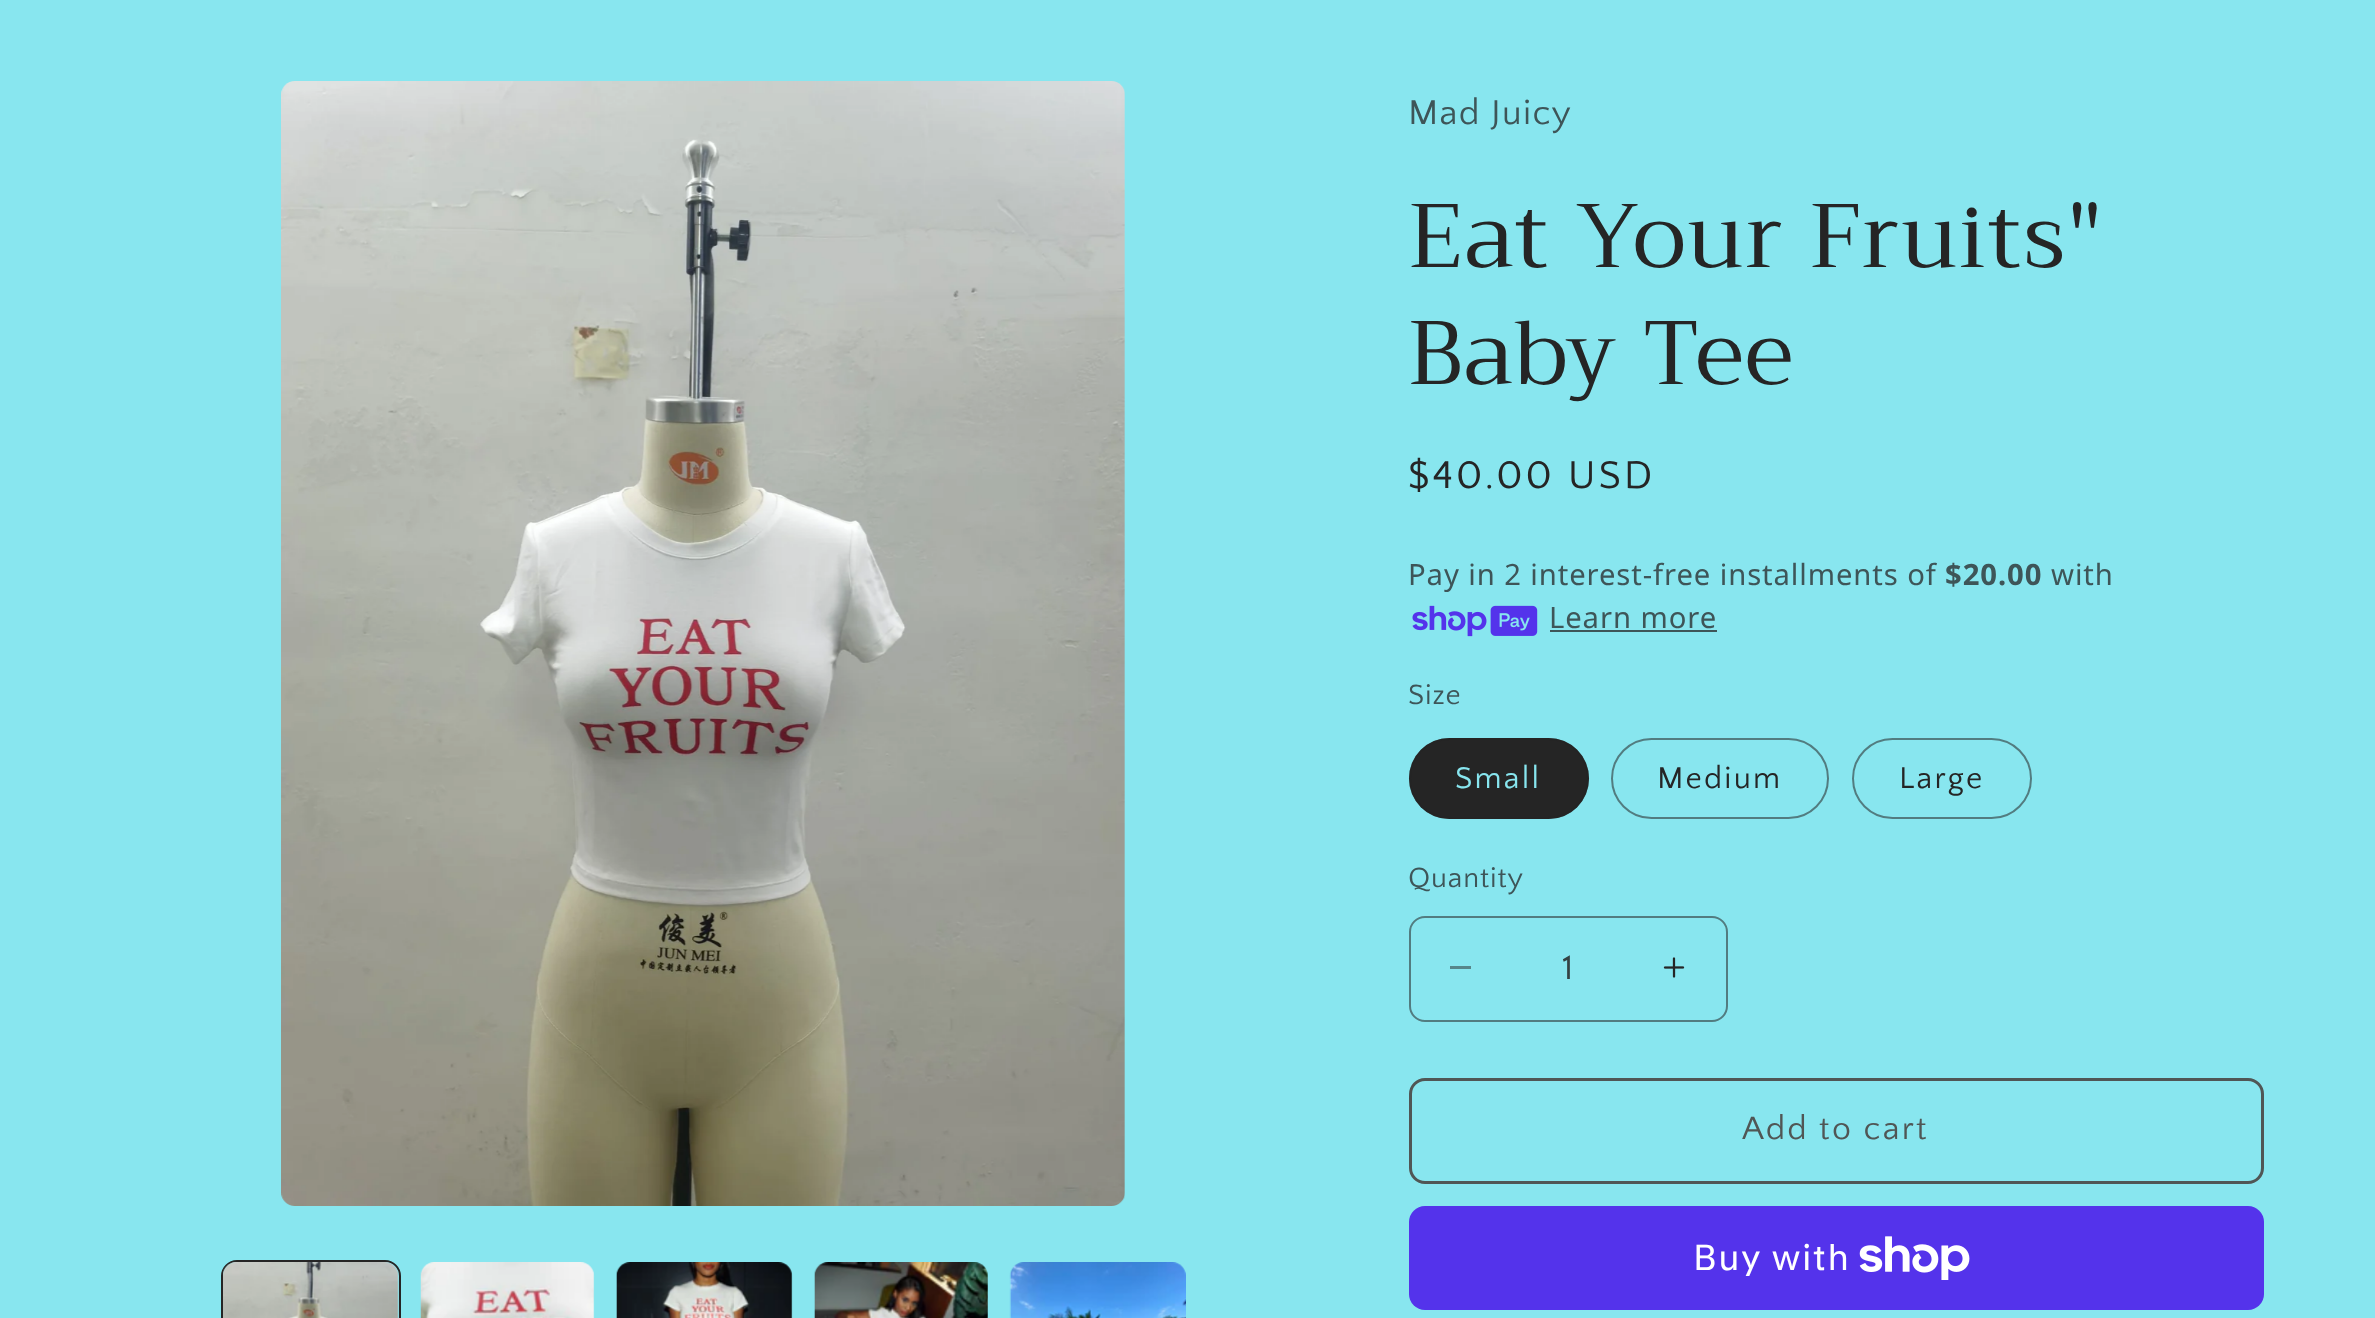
<!DOCTYPE html>
<meta charset="utf-8">
<style>body { margin: 0 } canvas { display: block }</style>
<canvas id="canvas" width="2375" height="1318"></canvas>
<img id="img1" src="images/1.png" hidden>
<img id="img2" src="images/2.png" hidden>
<img id="img3" src="images/3.png" hidden>
<img id="img4" src="images/4.png" hidden>
<img id="img5" src="images/5.png" hidden>
<img id="img6" src="images/6.png" hidden>
<img id="img7" src="images/7.png" hidden>
<img id="img8" src="images/8.png" hidden>
<img id="img9" src="images/9.png" hidden>
<script>
window.onload = function () {
    const canvas = document.getElementById('canvas');
    const context = canvas.getContext('2d');
    context.miterLimit = 4;
    context.fontKerning = 'normal';

    context.fillStyle = 'rgb(136, 230, 239)';
    context.fillRect(0, 0, 2375, 1318);
    context.drawImage(document.getElementById('img1'), 281, 81, 844, 1125);
    context.beginPath();
    context.roundRect(222, 1261, 178, 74, 15);
    context.strokeStyle = 'rgb(37, 37, 37)';
    context.lineWidth = 2;
    context.stroke();
    context.drawImage(document.getElementById('img2'), 223, 1262, 176, 56);
    context.drawImage(document.getElementById('img3'), 420, 1262, 175, 56);
    context.drawImage(document.getElementById('img4'), 616, 1262, 177, 56);
    context.drawImage(document.getElementById('img5'), 814, 1262, 174, 56);
    context.drawImage(document.getElementById('img6'), 1009, 1262, 177, 56);
    context.drawImage(document.getElementById('img7'), 1412, 605, 126, 32);
    context.fillStyle = 'rgb(62, 85, 88)';
    context.fillRect(1550, 630, 167, 2);
    context.fillStyle = 'rgb(37, 37, 37)';
    context.beginPath();
    context.roundRect(1409, 738, 180, 81, 40.5);
    context.fill();
    context.beginPath();
    context.roundRect(1410, 739, 178, 79, 39.5);
    context.strokeStyle = 'rgba(37, 37, 37, 0.55)';
    context.stroke();
    context.beginPath();
    context.roundRect(1612, 739, 216, 79, 39.5);
    context.strokeStyle = 'rgb(82, 124, 128)';
    context.stroke();
    context.beginPath();
    context.roundRect(1853, 739, 178, 79, 39.5);
    context.stroke();
    context.fillStyle = 'rgb(87, 134, 138)';
    context.fillRect(1450, 966, 21, 3);
    context.drawImage(document.getElementById('img8'), 1663, 957, 22, 21);
    context.beginPath();
    context.roundRect(1410, 917, 317, 104, 15);
    context.stroke();
    context.beginPath();
    context.roundRect(1410.5, 1079.5, 852, 103, 14.5);
    context.strokeStyle = 'rgb(80, 86, 85)';
    context.lineWidth = 3;
    context.stroke();
    context.fillStyle = 'rgb(84, 51, 235)';
    context.beginPath();
    context.roundRect(1409, 1206, 855, 104, 16);
    context.fill();
    context.drawImage(document.getElementById('img9'), 1859, 1236, 111, 44);
    context.letterSpacing = '1.4px';
    context.font = '36px Quattrocento Sans';
    context.fillStyle = 'rgb(62, 85, 88)';
    context.fillText('Mad Juicy', 1408, 124);
    context.font = '90px Trirong';
    context.fillStyle = 'rgb(37, 37, 37)';
    context.fillText('Eat Your Fruits"', 1408, 267);
    context.fillText('Baby Tee', 1408, 384);
    context.letterSpacing = '3px';
    context.font = '40.5px Quattrocento Sans';
    context.fillText('$40.00 USD', 1408, 488);
    context.letterSpacing = '0.9px';
    context.font = '29.25px Noto Sans';
    context.fillStyle = 'rgb(62, 85, 88)';
    context.fillText('Pay in 2 interest-free installments of', 1408, 585);
    context.font = 'bold 29.25px Noto Sans';
    context.fillText('$20.00', 1945, 585);
    context.font = '29.25px Noto Sans';
    context.fillText('with', 2051, 585);
    context.fillText('Learn more', 1549, 628);
    context.font = '29.25px Quattrocento Sans';
    context.fillText('Size', 1408, 704);
    context.letterSpacing = '2.25px';
    context.font = '31.5px Quattrocento Sans';
    context.fillStyle = 'rgb(136, 230, 239)';
    context.fillText('Small', 1455, 788);
    context.fillStyle = 'rgb(37, 37, 37)';
    context.fillText('Medium', 1657, 788);
    context.fillText('Large', 1899, 788);
    context.letterSpacing = '0.9px';
    context.font = '29.25px Quattrocento Sans';
    context.fillStyle = 'rgb(62, 85, 88)';
    context.fillText('Quantity', 1408, 887);
    context.letterSpacing = '0px';
    context.font = '36px Quattrocento Sans';
    context.fillStyle = 'rgb(52, 66, 67)';
    context.fillText('1', 1562, 979);
    context.letterSpacing = '2.25px';
    context.font = '33.75px Quattrocento Sans';
    context.fillStyle = 'rgb(80, 86, 85)';
    context.fillText('Add to cart', 1742, 1139);
    context.letterSpacing = '1.4px';
    context.font = '36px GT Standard';
    context.fillStyle = 'rgb(255, 255, 255)';
    context.fillText('Buy with', 1693, 1270);
};
</script>
